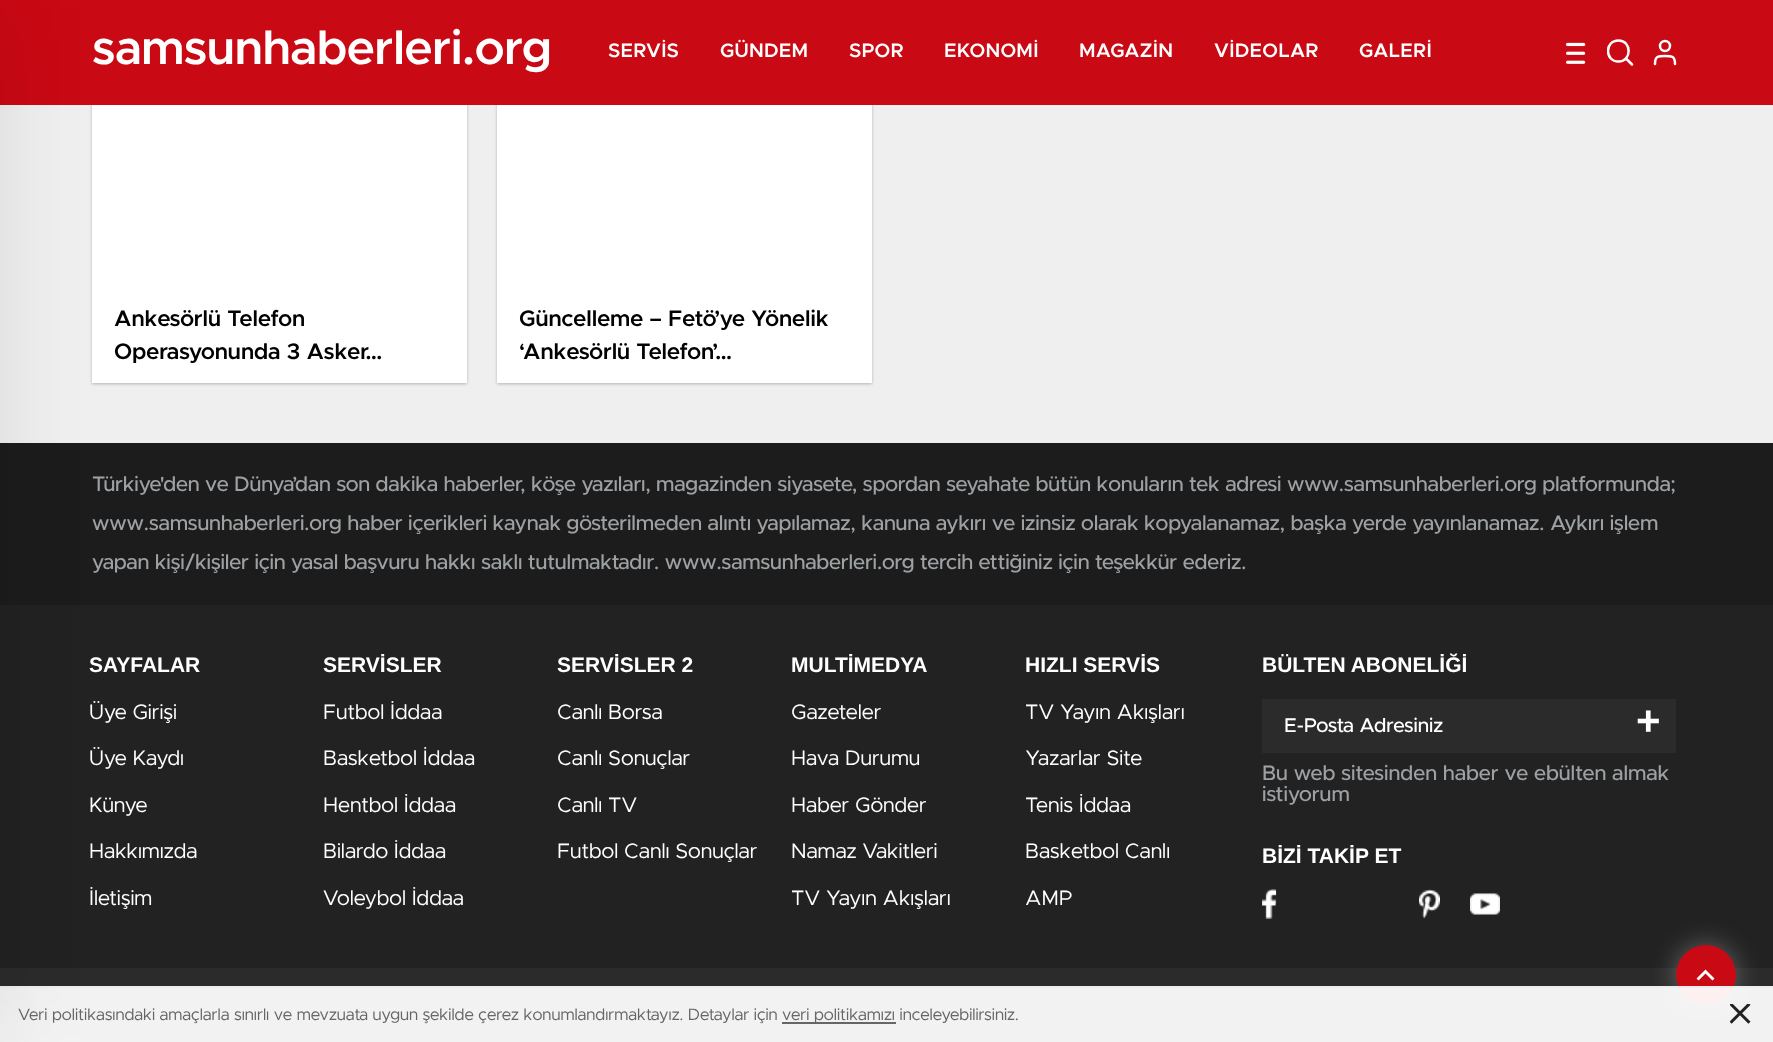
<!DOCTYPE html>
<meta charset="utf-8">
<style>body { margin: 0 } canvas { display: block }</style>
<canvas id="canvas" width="1773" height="1042"></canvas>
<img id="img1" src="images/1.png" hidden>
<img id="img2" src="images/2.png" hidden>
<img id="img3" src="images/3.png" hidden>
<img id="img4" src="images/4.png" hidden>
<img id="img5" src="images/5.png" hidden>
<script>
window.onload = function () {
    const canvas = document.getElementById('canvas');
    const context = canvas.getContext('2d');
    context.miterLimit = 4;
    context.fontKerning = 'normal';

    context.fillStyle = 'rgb(239, 239, 239)';
    context.fillRect(0, 0, 1773, 1042);
    context.fillStyle = 'rgba(17, 21, 25, 0.27)';
    context.filter = 'blur(1.5px)';
    context.beginPath();
    context.rect(92, 51, 375, 333);
    context.fill();
    context.filter = 'none';
    context.filter = 'blur(1.5px)';
    context.beginPath();
    context.rect(497, 51, 375, 333);
    context.fill();
    context.filter = 'none';
    context.fillStyle = 'rgb(201, 9, 20)';
    context.fillRect(0, 0, 1773, 105);
    context.fillStyle = 'rgb(255, 255, 255)';
    context.fillRect(92, 105, 375, 278);
    context.fillStyle = 'rgb(34, 34, 34)';
    context.fillRect(0, 605, 1773, 363);
    context.fillStyle = 'rgb(28, 28, 28)';
    context.fillRect(0, 443, 1773, 162);
    context.fillStyle = 'rgb(43, 43, 43)';
    context.fillRect(0, 968, 1773, 74);
    context.fillStyle = 'rgba(157, 161, 164, 0.54)';
    context.filter = 'blur(13.5px)';
    context.beginPath();
    context.roundRect(1676, 945, 60, 60, 30);
    context.fill();
    context.filter = 'none';
    context.fillStyle = 'rgb(201, 9, 20)';
    context.beginPath();
    context.arc(1706, 975, 30, 0, 2 * Math.PI);
    context.fill();
    context.fillStyle = 'rgba(255, 255, 255, 0.94)';
    context.fillRect(0, 988, 1773, 54);
    context.fillStyle = 'rgb(238, 238, 238)';
    context.fillRect(0, 986, 1773, 2);
    context.fillStyle = 'rgba(0, 0, 0, 0.1)';
    context.filter = 'blur(45px)';
    context.beginPath();
    context.rect(-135, 8, 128, 1027);
    context.fill();
    context.filter = 'none';
    context.save();
    context.beginPath();
    context.rect(1607, 39, 27, 27);
    context.clip();
    context.beginPath();
    context.moveTo(1618.5, 61.5);
    context.bezierCurveTo(1632, 61.5, 1632, 40.5, 1618.5, 40.5);
    context.bezierCurveTo(1604.5, 40.5, 1604.5, 61.5, 1618.5, 61.5);
    context.closePath();
    context.strokeStyle = 'rgb(255, 255, 255)';
    context.lineWidth = 2.5;
    context.lineCap = 'round';
    context.lineJoin = 'round';
    context.stroke();
    context.restore();
    context.beginPath();
    context.moveTo(1626, 58.5);
    context.lineTo(1632, 64.5);
    context.moveTo(1675, 64);
    context.bezierCurveTo(1675, 56, 1672, 56, 1665, 56);
    context.bezierCurveTo(1658, 56, 1655, 56, 1655, 64);
    context.strokeStyle = 'rgb(255, 255, 255)';
    context.lineWidth = 2.5;
    context.lineCap = 'round';
    context.lineJoin = 'round';
    context.stroke();
    context.drawImage(document.getElementById('img1'), 1566, 42, 20, 22);
    context.beginPath();
    context.arc(1665, 46, 5, 0, 2 * Math.PI);
    context.stroke();
    context.fillStyle = 'rgb(255, 255, 255)';
    context.fillRect(497, 105, 375, 278);
    context.fillStyle = 'rgb(43, 43, 43)';
    context.fillRect(1262, 699, 414, 54);
    context.drawImage(document.getElementById('img2'), 1262, 889, 15, 30);
    context.drawImage(document.getElementById('img3'), 1419, 889, 21, 30);
    context.drawImage(document.getElementById('img4'), 1470, 893, 30, 22);
    context.fillStyle = 'rgb(102, 102, 102)';
    context.fillRect(782, 1022, 114, 2);
    context.drawImage(document.getElementById('img5'), 1730, 1004, 21, 20);
    context.fillStyle = 'rgb(255, 255, 255)';
    context.beginPath();
    context.moveTo(1705.5, 969.5);
    context.lineTo(1696.5, 978.5);
    context.lineTo(1698.5, 980.5);
    context.lineTo(1705.5, 973.5);
    context.lineTo(1712.5, 980.5);
    context.lineTo(1714.5, 978.5);
    context.closePath();
    context.fill();
    context.font = '600 48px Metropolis';
    context.fillText('samsunhaberleri.org', 92, 64);
    context.letterSpacing = '0.25px';
    context.font = '600 19.5px Metropolis';
    context.fillText('SERVİS', 608, 57);
    context.fillText('GÜNDEM', 720, 57);
    context.fillText('SPOR', 849, 57);
    context.fillText('EKONOMİ', 944, 57);
    context.fillText('MAGAZİN', 1079, 57);
    context.fillText('VİDEOLAR', 1214, 57);
    context.fillText('GALERİ', 1359, 57);
    context.letterSpacing = '0px';
    context.font = '600 22.5px Metropolis';
    context.fillStyle = 'rgb(1, 1, 1)';
    context.fillText('Ankesörlü Telefon', 114, 326);
    context.fillText('Operasyonunda 3 Asker…', 114, 359);
    context.fillText('Güncelleme – Fetö’ye Yönelik', 519, 326);
    context.fillText('‘Ankesörlü Telefon’…', 519, 359);
    context.letterSpacing = '-0.15px';
    context.font = '500 21px Metropolis';
    context.fillStyle = 'rgb(157, 161, 164)';
    context.fillText('Türkiye\'den ve Dünya’dan son dakika haberler, köşe yazıları, magazinden siyasete, spordan seyahate bütün konuların tek adresi www.samsunhaberleri.org platformunda;', 92, 491);
    context.fillText('www.samsunhaberleri.org haber içerikleri kaynak gösterilmeden alıntı yapılamaz, kanuna aykırı ve izinsiz olarak kopyalanamaz, başka yerde yayınlanamaz. Aykırı işlem', 92, 530);
    context.fillText('yapan kişi/kişiler için yasal başvuru hakkı saklı tutulmaktadır. www.samsunhaberleri.org tercih ettiğiniz için teşekkür ederiz.', 92, 569);
    context.letterSpacing = '0px';
    context.font = 'bold 21px Liberation Sans';
    context.fillStyle = 'rgb(255, 255, 255)';
    context.fillText('SAYFALAR', 89, 672);
    context.font = '21px Metropolis';
    context.fillText('Üye Girişi', 89, 719);
    context.fillText('Üye Kaydı', 89, 765);
    context.fillText('Künye', 89, 812);
    context.fillText('Hakkımızda', 89, 858);
    context.fillText('İletişim', 89, 905);
    context.font = 'bold 21px Liberation Sans';
    context.fillText('SERVİSLER', 323, 672);
    context.font = '21px Metropolis';
    context.fillText('Futbol İddaa', 323, 719);
    context.fillText('Basketbol İddaa', 323, 765);
    context.fillText('Hentbol İddaa', 323, 812);
    context.fillText('Bilardo İddaa', 323, 858);
    context.fillText('Voleybol İddaa', 323, 905);
    context.font = 'bold 21px Liberation Sans';
    context.fillText('SERVİSLER 2', 557, 672);
    context.font = '21px Metropolis';
    context.fillText('Canlı Borsa', 557, 719);
    context.fillText('Canlı Sonuçlar', 557, 765);
    context.fillText('Canlı TV', 557, 812);
    context.fillText('Futbol Canlı Sonuçlar', 557, 858);
    context.font = 'bold 21px Liberation Sans';
    context.fillText('MULTİMEDYA', 791, 672);
    context.font = '21px Metropolis';
    context.fillText('Gazeteler', 791, 719);
    context.fillText('Hava Durumu', 791, 765);
    context.fillText('Haber Gönder', 791, 812);
    context.fillText('Namaz Vakitleri', 791, 858);
    context.fillText('TV Yayın Akışları', 791, 905);
    context.font = 'bold 21px Liberation Sans';
    context.fillText('HIZLI SERVİS', 1025, 672);
    context.font = '21px Metropolis';
    context.fillText('TV Yayın Akışları', 1025, 719);
    context.fillText('Yazarlar Site', 1025, 765);
    context.fillText('Tenis İddaa', 1025, 812);
    context.fillText('Basketbol Canlı', 1025, 858);
    context.fillText('AMP', 1025, 905);
    context.font = 'bold 21px Liberation Sans';
    context.fillText('BÜLTEN ABONELİĞİ', 1262, 672);
    context.font = '500 20px Metropolis';
    context.fillText('E-Posta Adresiniz', 1284, 732);
    context.font = 'bold 42px Liberation Sans';
    context.fillText('+', 1636, 735);
    context.font = '500 21px Metropolis';
    context.fillStyle = 'rgb(157, 161, 164)';
    context.fillText('Bu web sitesinden haber ve ebülten almak', 1262, 780);
    context.fillText('istiyorum', 1262, 801);
    context.font = 'bold 21px Liberation Sans';
    context.fillStyle = 'rgb(255, 255, 255)';
    context.fillText('BİZİ TAKİP ET', 1262, 863);
    context.font = '16.5px Metropolis';
    context.fillStyle = 'rgb(102, 102, 102)';
    context.fillText('Veri politikasındaki amaçlarla sınırlı ve mevzuata uygun şekilde çerez konumlandırmaktayız. Detaylar için', 18, 1020);
    context.fillText('veri politikamızı inceleyebilirsiniz.', 782, 1020);
};
</script>
